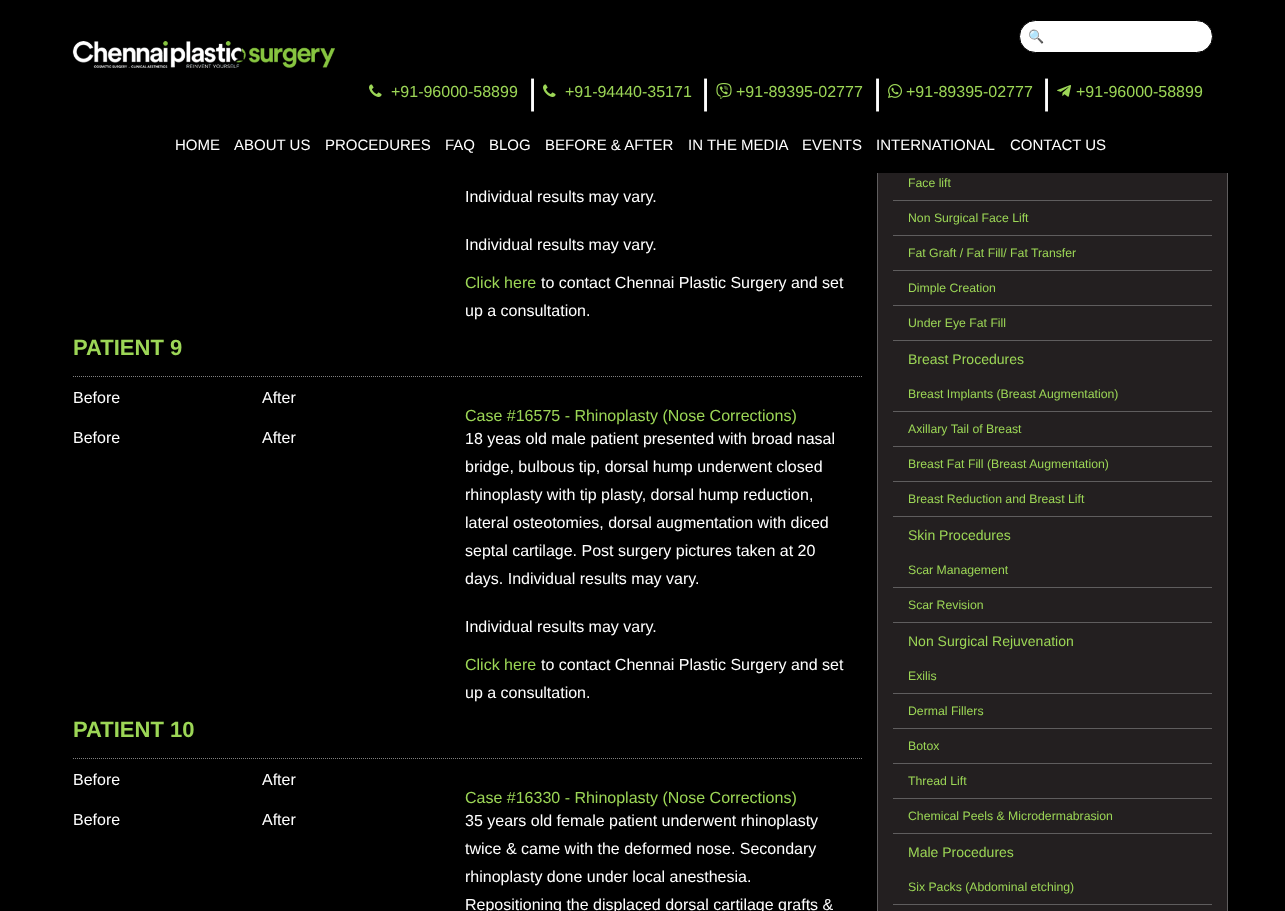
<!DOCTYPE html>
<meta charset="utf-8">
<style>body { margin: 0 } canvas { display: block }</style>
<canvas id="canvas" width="1285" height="911"></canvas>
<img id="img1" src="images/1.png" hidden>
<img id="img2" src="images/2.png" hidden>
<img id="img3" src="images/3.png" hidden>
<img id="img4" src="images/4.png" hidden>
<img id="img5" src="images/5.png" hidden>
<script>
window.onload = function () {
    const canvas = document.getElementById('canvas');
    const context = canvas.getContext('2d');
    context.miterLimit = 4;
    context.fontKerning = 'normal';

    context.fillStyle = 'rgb(0, 0, 0)';
    context.fillRect(0, 0, 1285, 911);
    context.fillStyle = 'rgb(35, 31, 32)';
    context.fillRect(878, 173, 349, 738);
    context.strokeStyle = 'rgb(95, 93, 94)';
    context.strokeRect(877.5, -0.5, 350, 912);
    context.fillStyle = 'rgb(0, 0, 0)';
    context.fillRect(877, 0, 351, 173);
    context.fillStyle = 'rgb(255, 255, 255)';
    context.beginPath();
    context.roundRect(1019.5, 20.5, 193, 32, 16);
    context.fill();
    context.strokeStyle = 'rgb(0, 0, 0)';
    context.stroke();
    context.drawImage(document.getElementById('img1'), 72, 41, 263, 27);
    context.drawImage(document.getElementById('img2'), 369, 84, 13, 13);
    context.drawImage(document.getElementById('img2'), 543, 84, 13, 13);
    context.drawImage(document.getElementById('img3'), 716, 83, 16, 16);
    context.drawImage(document.getElementById('img4'), 888, 84, 14, 14);
    context.drawImage(document.getElementById('img5'), 1057, 85, 14, 12);
    context.beginPath();
    context.moveTo(73, 376.5);
    context.lineTo(862, 376.5);
    context.strokeStyle = 'rgb(128, 128, 128)';
    context.setLineDash([1, 1]);
    context.stroke();
    context.beginPath();
    context.moveTo(73, 758.5);
    context.lineTo(862, 758.5);
    context.stroke();
    context.fillStyle = 'rgb(95, 93, 94)';
    context.fillRect(893, 340, 319, 1);
    context.fillRect(893, 200, 319, 1);
    context.fillRect(893, 235, 319, 1);
    context.fillRect(893, 270, 319, 1);
    context.fillRect(893, 305, 319, 1);
    context.fillRect(893, 516, 319, 1);
    context.fillRect(893, 411, 319, 1);
    context.fillRect(893, 446, 319, 1);
    context.fillRect(893, 481, 319, 1);
    context.fillRect(893, 622, 319, 1);
    context.fillRect(893, 587, 319, 1);
    context.fillRect(893, 833, 319, 1);
    context.fillRect(893, 693, 319, 1);
    context.fillRect(893, 728, 319, 1);
    context.fillRect(893, 763, 319, 1);
    context.fillRect(893, 798, 319, 1);
    context.fillRect(893, 904, 319, 1);
    context.save();
    context.beginPath();
    context.rect(1028, 29, 176, 15);
    context.clip();
    context.font = '13px Noto Color Emoji';
    context.fillStyle = 'rgb(128, 128, 128)';
    context.fillText('🔍', 1028, 41);
    context.restore();
    context.font = '16px Liberation Sans';
    context.fillStyle = 'rgb(156, 214, 86)';
    context.fillText('+91-96000-58899', 391, 97);
    context.font = '35px Liberation Sans';
    context.fillStyle = 'rgb(255, 255, 255)';
    context.fillText('|', 528, 104);
    context.font = '16px Liberation Sans';
    context.fillStyle = 'rgb(156, 214, 86)';
    context.fillText('+91-94440-35171', 565, 97);
    context.font = '35px Liberation Sans';
    context.fillStyle = 'rgb(255, 255, 255)';
    context.fillText('|', 701, 104);
    context.font = '16px Liberation Sans';
    context.fillStyle = 'rgb(156, 214, 86)';
    context.fillText('+91-89395-02777', 736, 97);
    context.font = '35px Liberation Sans';
    context.fillStyle = 'rgb(255, 255, 255)';
    context.fillText('|', 873, 104);
    context.font = '16px Liberation Sans';
    context.fillStyle = 'rgb(156, 214, 86)';
    context.fillText('+91-89395-02777', 906, 97);
    context.font = '35px Liberation Sans';
    context.fillStyle = 'rgb(255, 255, 255)';
    context.fillText('|', 1042, 104);
    context.font = '16px Liberation Sans';
    context.fillStyle = 'rgb(156, 214, 86)';
    context.fillText('+91-96000-58899', 1076, 97);
    context.font = '15px Liberation Sans';
    context.fillStyle = 'rgb(255, 255, 255)';
    context.fillText('HOME', 175, 150);
    context.fillText('ABOUT US', 234, 150);
    context.fillText('PROCEDURES', 325, 150);
    context.fillText('FAQ', 445, 150);
    context.fillText('BLOG', 489, 150);
    context.fillText('BEFORE & AFTER', 545, 150);
    context.fillText('IN THE MEDIA', 688, 150);
    context.fillText('EVENTS', 802, 150);
    context.fillText('INTERNATIONAL', 876, 150);
    context.fillText('CONTACT US', 1010, 150);
    context.font = '16px Liberation Sans';
    context.fillText('Individual results may vary.', 465, 202);
    context.fillText('Individual results may vary.', 465, 250);
    context.fillStyle = 'rgb(156, 214, 86)';
    context.fillText('Click here', 465, 288);
    context.fillStyle = 'rgb(255, 255, 255)';
    context.fillText('to contact Chennai Plastic Surgery and set', 541, 288);
    context.fillText('up a consultation.', 465, 316);
    context.font = 'bold 22px Liberation Sans';
    context.fillStyle = 'rgb(156, 214, 86)';
    context.fillText('PATIENT 9', 73, 355);
    context.font = '16px Liberation Sans';
    context.fillStyle = 'rgb(255, 255, 255)';
    context.fillText('Before', 73, 403);
    context.fillText('After', 262, 403);
    context.fillText('Before', 73, 443);
    context.fillText('After', 262, 443);
    context.fillStyle = 'rgb(156, 214, 86)';
    context.fillText('Case #16575 - Rhinoplasty (Nose Corrections)', 465, 421);
    context.fillStyle = 'rgb(255, 255, 255)';
    context.fillText('18 yeas old male patient presented with broad nasal', 465, 444);
    context.fillText('bridge, bulbous tip, dorsal hump underwent closed', 465, 472);
    context.fillText('rhinoplasty with tip plasty, dorsal hump reduction,', 465, 500);
    context.fillText('lateral osteotomies, dorsal augmentation with diced', 465, 528);
    context.fillText('septal cartilage. Post surgery pictures taken at 20', 465, 556);
    context.fillText('days. Individual results may vary.', 465, 584);
    context.fillText('Individual results may vary.', 465, 632);
    context.fillStyle = 'rgb(156, 214, 86)';
    context.fillText('Click here', 465, 670);
    context.fillStyle = 'rgb(255, 255, 255)';
    context.fillText('to contact Chennai Plastic Surgery and set', 541, 670);
    context.fillText('up a consultation.', 465, 698);
    context.font = 'bold 22px Liberation Sans';
    context.fillStyle = 'rgb(156, 214, 86)';
    context.fillText('PATIENT 10', 73, 737);
    context.font = '16px Liberation Sans';
    context.fillStyle = 'rgb(255, 255, 255)';
    context.fillText('Before', 73, 785);
    context.fillText('After', 262, 785);
    context.fillText('Before', 73, 825);
    context.fillText('After', 262, 825);
    context.fillStyle = 'rgb(156, 214, 86)';
    context.fillText('Case #16330 - Rhinoplasty (Nose Corrections)', 465, 803);
    context.fillStyle = 'rgb(255, 255, 255)';
    context.fillText('35 years old female patient underwent rhinoplasty', 465, 826);
    context.fillText('twice & came with the deformed nose. Secondary', 465, 854);
    context.fillText('rhinoplasty done under local anesthesia.', 465, 882);
    context.fillText('Repositioning the displaced dorsal cartilage grafts &', 465, 910);
    context.font = '12.25px Liberation Sans';
    context.fillStyle = 'rgb(156, 214, 86)';
    context.fillText('Face lift', 908, 187);
    context.fillText('Non Surgical Face Lift', 908, 222);
    context.fillText('Fat Graft / Fat Fill/ Fat Transfer', 908, 257);
    context.fillText('Dimple Creation', 908, 292);
    context.fillText('Under Eye Fat Fill', 908, 327);
    context.font = '14px Liberation Sans';
    context.fillText('Breast Procedures', 908, 364);
    context.font = '12.25px Liberation Sans';
    context.fillText('Breast Implants (Breast Augmentation)', 908, 398);
    context.fillText('Axillary Tail of Breast', 908, 433);
    context.fillText('Breast Fat Fill (Breast Augmentation)', 908, 468);
    context.fillText('Breast Reduction and Breast Lift', 908, 503);
    context.font = '14px Liberation Sans';
    context.fillText('Skin Procedures', 908, 540);
    context.font = '12.25px Liberation Sans';
    context.fillText('Scar Management', 908, 574);
    context.fillText('Scar Revision', 908, 609);
    context.font = '14px Liberation Sans';
    context.fillText('Non Surgical Rejuvenation', 908, 646);
    context.font = '12.25px Liberation Sans';
    context.fillText('Exilis', 908, 680);
    context.fillText('Dermal Fillers', 908, 715);
    context.fillText('Botox', 908, 750);
    context.fillText('Thread Lift', 908, 785);
    context.fillText('Chemical Peels & Microdermabrasion', 908, 820);
    context.font = '14px Liberation Sans';
    context.fillText('Male Procedures', 908, 857);
    context.font = '12.25px Liberation Sans';
    context.fillText('Six Packs (Abdominal etching)', 908, 891);
};
</script>
